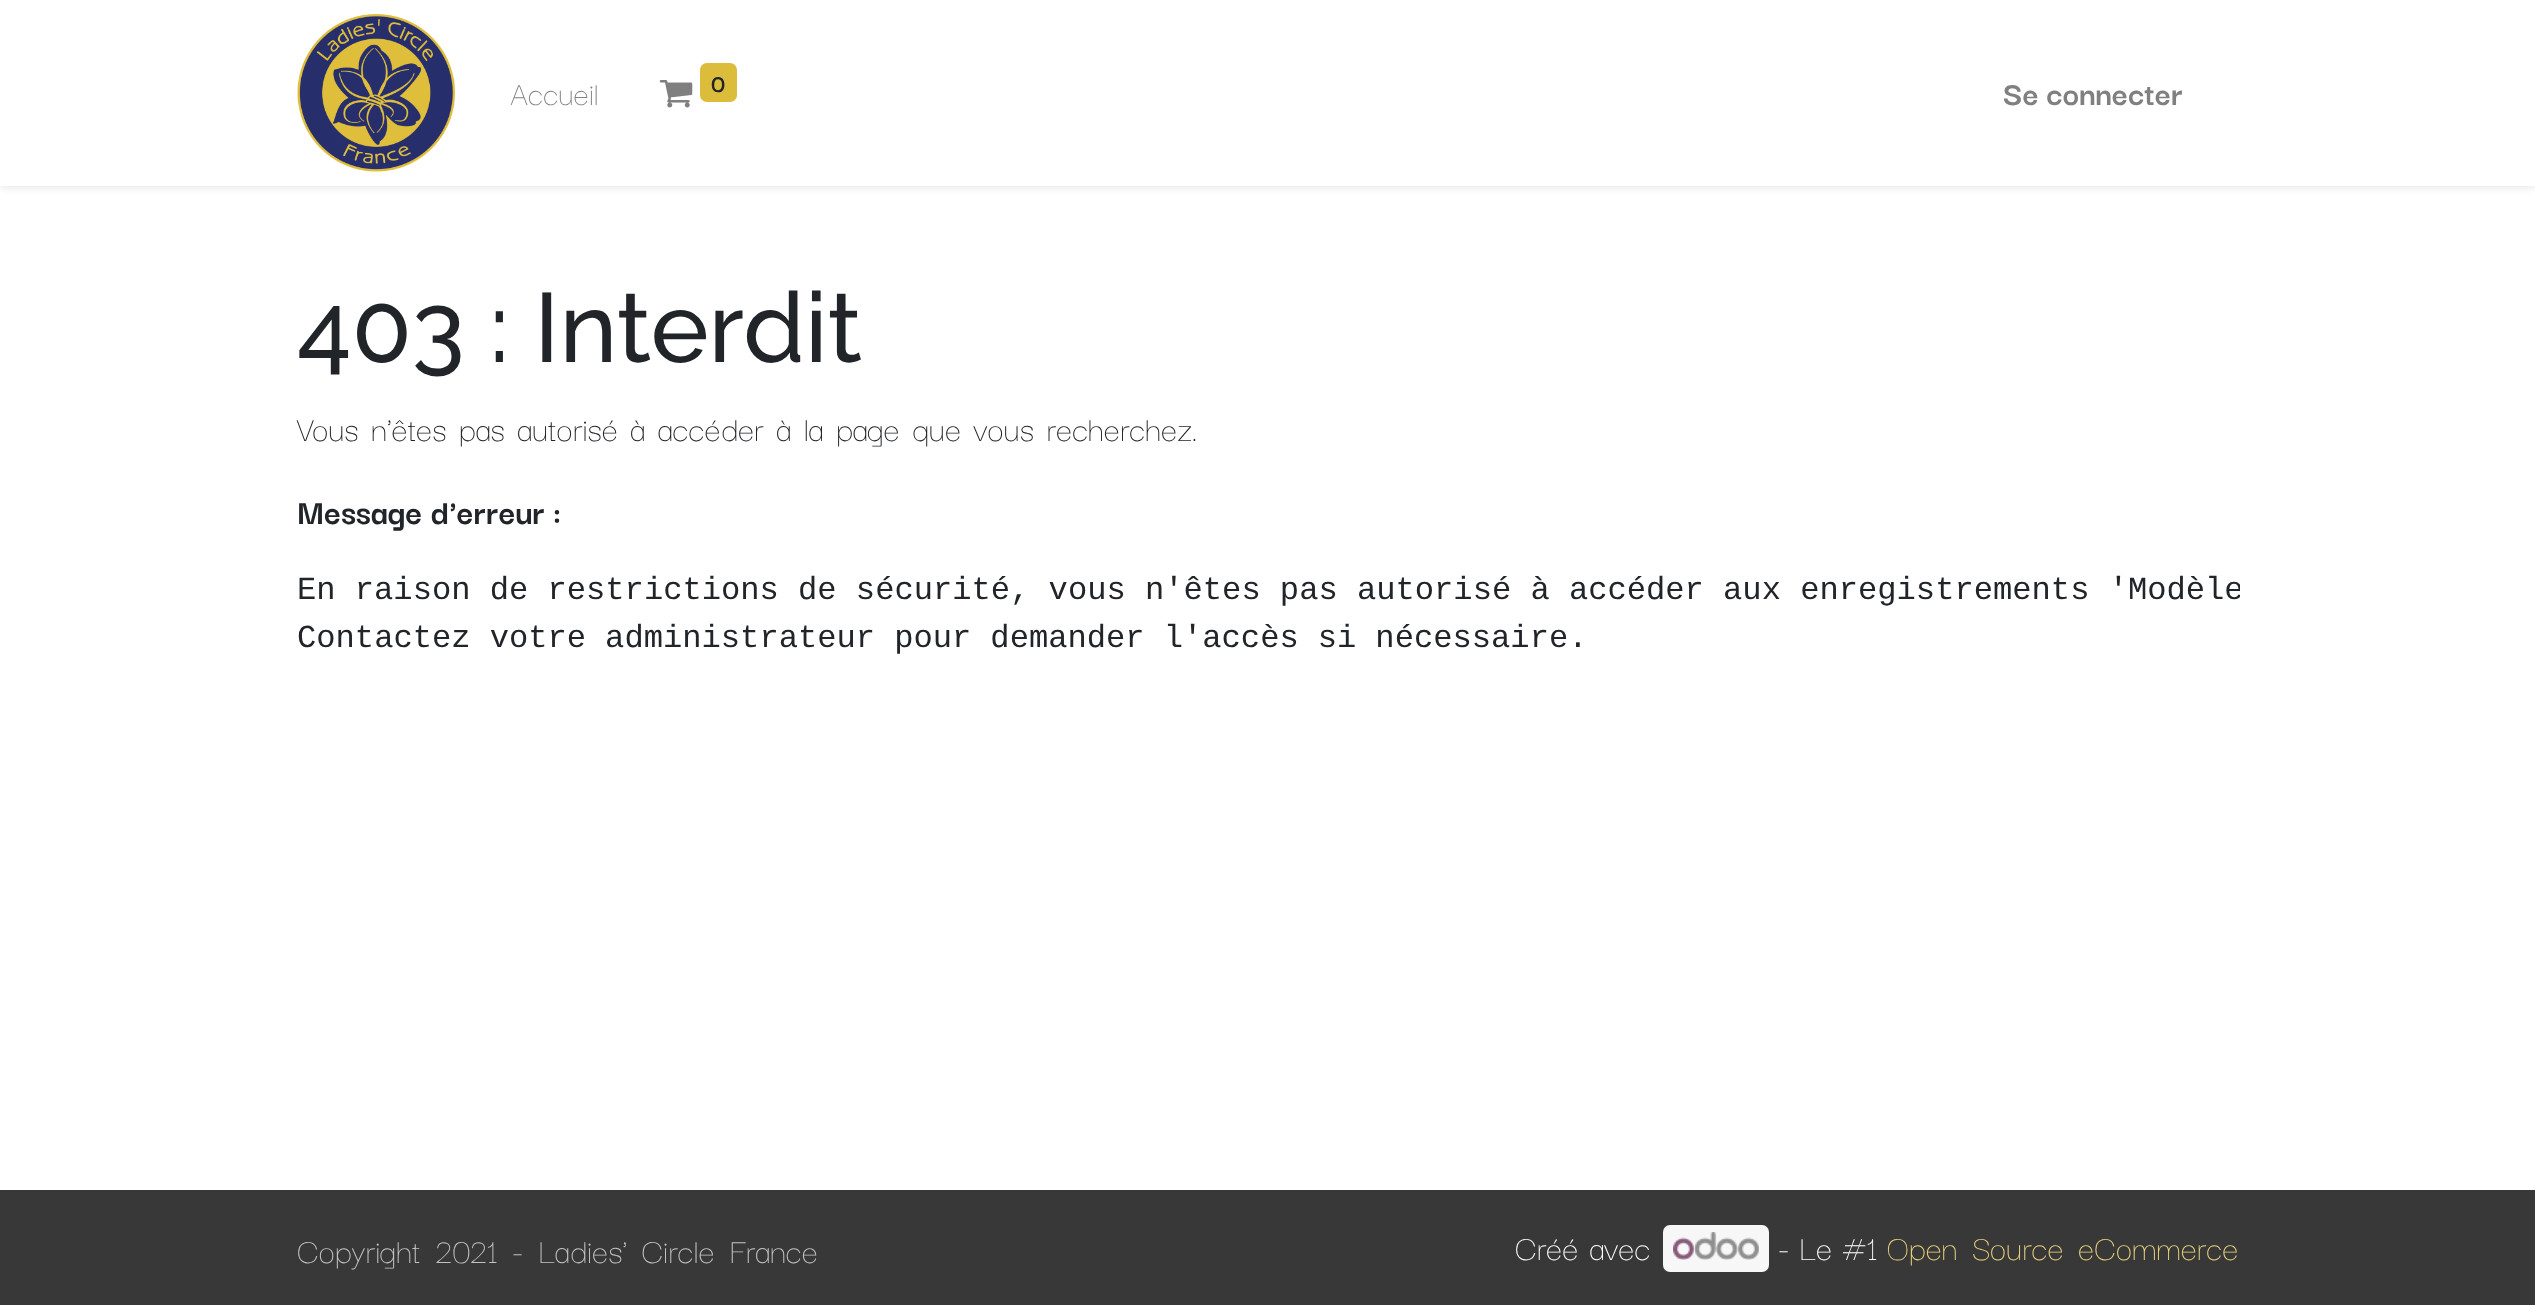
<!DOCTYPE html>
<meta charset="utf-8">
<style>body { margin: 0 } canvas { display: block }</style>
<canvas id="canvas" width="2535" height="1305"></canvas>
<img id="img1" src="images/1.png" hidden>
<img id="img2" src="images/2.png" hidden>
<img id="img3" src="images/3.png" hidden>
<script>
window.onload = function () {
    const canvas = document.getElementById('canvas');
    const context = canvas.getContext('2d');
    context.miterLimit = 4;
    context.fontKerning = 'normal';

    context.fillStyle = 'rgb(255, 255, 255)';
    context.fillRect(0, 0, 2535, 1305);
    context.fillStyle = 'rgba(0, 0, 0, 0.07)';
    context.filter = 'blur(3.5px)';
    context.beginPath();
    context.rect(0, 4, 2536, 185);
    context.fill();
    context.filter = 'none';
    context.fillStyle = 'rgb(255, 255, 255)';
    context.fillRect(0, 0, 2535, 186);
    context.drawImage(document.getElementById('img1'), 297, 14, 158, 158);
    context.drawImage(document.getElementById('img2'), 659, 80, 34, 28);
    context.fillStyle = 'rgb(220, 188, 59)';
    context.beginPath();
    context.roundRect(700, 63, 37, 39, 7);
    context.fill();
    context.fillStyle = 'rgb(56, 56, 56)';
    context.fillRect(0, 1190, 2535, 115);
    context.fillStyle = 'rgb(247, 247, 247)';
    context.beginPath();
    context.roundRect(1663, 1225, 106, 47, 7);
    context.fill();
    context.drawImage(document.getElementById('img3'), 1673, 1232, 86, 28);
    context.font = '300 35px Darker Grotesque';
    context.fillStyle = 'rgb(128, 128, 128)';
    context.fillText('Accueil', 510, 105);
    context.font = 'bold 26px Darker Grotesque';
    context.fillStyle = 'rgb(33, 37, 41)';
    context.fillText('0', 711, 92);
    context.font = 'bold 35px Darker Grotesque';
    context.fillStyle = 'rgb(128, 128, 128)';
    context.fillText('Se connecter', 2003, 105);
    context.font = '500 98px Raleway';
    context.fillStyle = 'rgb(33, 37, 41)';
    context.fillText('403 : Interdit', 297, 362);
    context.wordSpacing = '3.25px';
    context.font = '300 36.75px Darker Grotesque';
    context.fillText('Vous n\'êtes pas autorisé à accéder à la page que vous recherchez.', 297, 441);
    context.wordSpacing = '0px';
    context.font = 'bold 36.75px Darker Grotesque';
    context.fillText('Message d\'erreur :', 297, 524);
    context.save();
    context.beginPath();
    context.rect(298, 567, 1942, 96);
    context.clip();
    context.wordSpacing = '-0.1px';
    context.font = '32.15px Liberation Mono';
    context.fillText('En raison de restrictions de sécurité, vous n\'êtes pas autorisé à accéder aux enregistrements \'Modèle', 297, 599);
    context.restore();
    context.wordSpacing = '-0.25px';
    context.font = '32.15px Liberation Mono';
    context.fillText('Contactez votre administrateur pour demander l\'accès si nécessaire.', 297, 647);
    context.wordSpacing = '5px';
    context.font = '300 36.75px Darker Grotesque';
    context.fillStyle = 'rgb(195, 195, 195)';
    context.fillText('Copyright 2021 - Ladies\' Circle France', 297, 1263);
    context.wordSpacing = '2px';
    context.fillStyle = 'rgb(255, 255, 255)';
    context.fillText('Créé avec', 1515, 1260);
    context.wordSpacing = '0px';
    context.fillText('-', 1778, 1260);
    context.fillText('Le #1', 1799, 1260);
    context.wordSpacing = '5px';
    context.fillStyle = 'rgb(232, 210, 124)';
    context.fillText('Open Source eCommerce', 1887, 1260);
};
</script>
